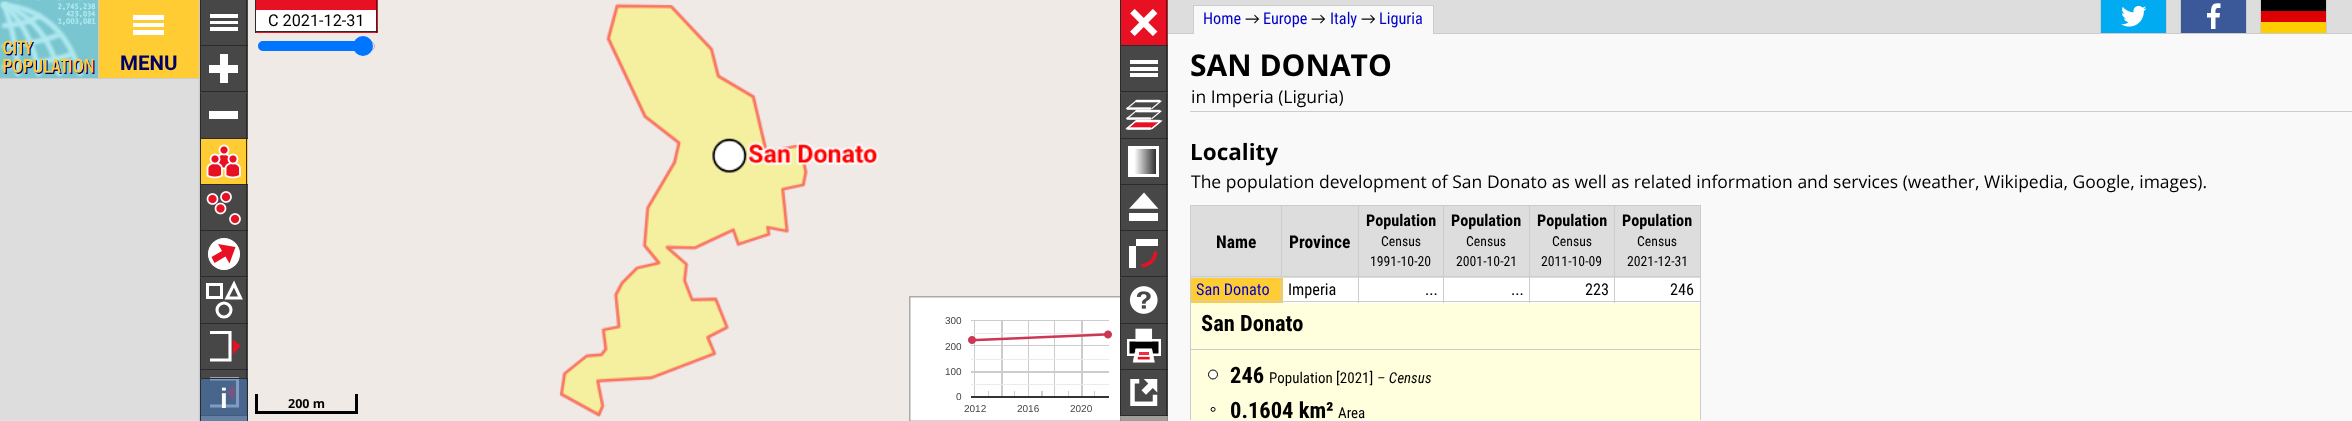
<!DOCTYPE html>
<meta charset="utf-8">
<style>body { margin: 0 } canvas { display: block }</style>
<canvas id="canvas" width="2352" height="421"></canvas>
<img id="img1" src="images/1.png" hidden>
<img id="img2" src="images/2.png" hidden>
<img id="img3" src="images/10.png" hidden>
<img id="img4" src="images/3.png" hidden>
<img id="img5" src="images/4.png" hidden>
<img id="img6" src="images/5.png" hidden>
<img id="img7" src="images/6.png" hidden>
<img id="img8" src="images/7.png" hidden>
<img id="img9" src="images/8.png" hidden>
<img id="img10" src="images/9.png" hidden>
<img id="img11" src="images/11.png" hidden>
<img id="img12" src="images/12.png" hidden>
<img id="img13" src="images/13.png" hidden>
<script>
window.onload = function () {
    const canvas = document.getElementById('canvas');
    const context = canvas.getContext('2d');
    context.miterLimit = 4;
    context.fontKerning = 'normal';
    let gradient;

    context.fillStyle = 'rgb(249, 249, 249)';
    context.fillRect(0, 0, 2352, 421);
    context.fillStyle = 'rgb(240, 234, 230)';
    context.beginPath();
    context.rect(200.5, -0.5, 967, 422);
    context.fill();
    context.strokeStyle = 'rgb(204, 204, 204)';
    context.stroke();
    context.fillStyle = 'rgba(43, 43, 43, 0.4)';
    context.fillRect(200, 0, 48, 421);
    context.fillStyle = 'rgba(43, 43, 43, 0.75)';
    context.fillRect(201, 0, 47, 45);
    context.fillStyle = 'rgb(43, 43, 43)';
    context.fillRect(200, 45, 48, 1);
    context.fillRect(200, 0, 1, 45);
    context.fillStyle = 'rgb(255, 255, 255)';
    context.fillRect(210, 14, 28, 4);
    context.fillStyle = 'rgb(43, 43, 43)';
    context.fillRect(246, 0, 1, 45);
    context.fillStyle = 'rgb(255, 255, 255)';
    context.fillRect(210, 21, 28, 3);
    context.fillRect(210, 27, 28, 4);
    context.fillStyle = 'rgba(43, 43, 43, 0.75)';
    context.fillRect(200, 46, 48, 47);
    context.fillStyle = 'rgb(43, 43, 43)';
    context.fillRect(200, 91, 48, 1);
    context.fillRect(200, 46, 1, 45);
    context.fillStyle = 'rgb(255, 255, 255)';
    context.fillRect(209, 65, 29, 8);
    context.fillRect(220, 54, 8, 29);
    context.fillStyle = 'rgb(43, 43, 43)';
    context.fillRect(246, 46, 1, 45);
    context.fillStyle = 'rgba(43, 43, 43, 0.75)';
    context.fillRect(201, 93, 47, 45);
    context.fillStyle = 'rgb(43, 43, 43)';
    context.fillRect(200, 138, 48, 1);
    context.fillRect(200, 93, 1, 45);
    context.fillStyle = 'rgb(255, 255, 255)';
    context.fillRect(209, 111, 29, 8);
    context.fillStyle = 'rgb(43, 43, 43)';
    context.fillRect(246, 93, 1, 45);
    context.fillStyle = 'rgb(255, 204, 51)';
    context.fillRect(201, 139, 47, 45);
    context.fillStyle = 'rgb(43, 43, 43)';
    context.fillRect(200, 184, 48, 1);
    context.fillRect(200, 139, 1, 45);
    context.drawImage(document.getElementById('img1'), 206, 144, 35, 35);
    context.fillRect(246, 139, 1, 45);
    context.fillStyle = 'rgba(43, 43, 43, 0.75)';
    context.fillRect(201, 185, 47, 45);
    context.fillStyle = 'rgb(43, 43, 43)';
    context.fillRect(200, 230, 48, 1);
    context.fillRect(200, 185, 1, 45);
    context.drawImage(document.getElementById('img2'), 206, 191, 35, 34);
    context.fillRect(246, 185, 1, 45);
    context.fillStyle = 'rgba(43, 43, 43, 0.75)';
    context.fillRect(200, 231, 48, 47);
    context.fillStyle = 'rgb(43, 43, 43)';
    context.fillRect(200, 276, 48, 1);
    context.fillRect(200, 231, 1, 45);
    context.fillStyle = 'rgb(255, 255, 255)';
    context.beginPath();
    context.arc(224, 254, 15.5, 0, 2 * Math.PI);
    context.fill();
    context.strokeStyle = 'rgb(255, 255, 255)';
    context.lineWidth = 1.1;
    context.stroke();
    context.fillStyle = 'rgb(43, 43, 43)';
    context.fillRect(246, 231, 1, 45);
    context.fillStyle = 'rgb(232, 17, 35)';
    context.beginPath();
    context.moveTo(211.5, 257);
    context.lineTo(222, 251);
    context.lineTo(218, 244);
    context.lineTo(235.5, 247);
    context.lineTo(229.5, 263.5);
    context.lineTo(225.5, 256.5);
    context.lineTo(214.5, 263);
    context.closePath();
    context.fill();
    context.fillStyle = 'rgba(43, 43, 43, 0.75)';
    context.fillRect(201, 278, 47, 45);
    context.fillStyle = 'rgb(43, 43, 43)';
    context.fillRect(200, 323, 48, 1);
    context.fillRect(200, 278, 1, 45);
    context.lineWidth = 3;
    context.strokeRect(207.5, 284.5, 14, 13);
    context.beginPath();
    context.moveTo(227, 298);
    context.lineTo(240.5, 298);
    context.lineTo(234, 284);
    context.closePath();
    context.lineWidth = 3.1;
    context.stroke();
    context.fillRect(246, 278, 1, 45);
    context.beginPath();
    context.arc(224, 310, 7, 0, 2 * Math.PI);
    context.stroke();
    context.fillStyle = 'rgba(43, 43, 43, 0.75)';
    context.fillRect(201, 324, 47, 45);
    context.fillStyle = 'rgb(43, 43, 43)';
    context.fillRect(200, 369, 48, 1);
    context.fillRect(200, 324, 1, 45);
    context.beginPath();
    context.moveTo(210, 360);
    context.lineTo(230, 360);
    context.lineTo(230, 332.5);
    context.lineTo(210, 332.5);
    context.stroke();
    context.beginPath();
    context.moveTo(237.5, 346);
    context.lineTo(235, 349);
    context.lineTo(235, 344);
    context.closePath();
    context.strokeStyle = 'rgb(232, 17, 35)';
    context.lineWidth = 4.4;
    context.stroke();
    context.fillRect(246, 324, 1, 45);
    context.fillStyle = 'rgba(43, 43, 43, 0.75)';
    context.fillRect(201, 370, 47, 45);
    context.fillStyle = 'rgb(43, 43, 43)';
    context.fillRect(200, 415, 48, 1);
    context.fillRect(200, 370, 1, 8);
    context.beginPath();
    context.moveTo(210, 406);
    context.lineTo(237.5, 406);
    context.lineTo(237.5, 379);
    context.lineTo(210, 379);
    context.strokeStyle = 'rgb(255, 255, 255)';
    context.lineWidth = 3.1;
    context.stroke();
    context.fillRect(246, 370, 1, 45);
    context.beginPath();
    context.moveTo(229.5, 392.5);
    context.lineTo(232, 395);
    context.lineTo(232, 390);
    context.closePath();
    context.strokeStyle = 'rgb(232, 17, 35)';
    context.lineWidth = 4.4;
    context.stroke();
    context.fillStyle = 'rgb(232, 17, 35)';
    context.fillRect(256, 0, 122, 33);
    context.fillStyle = 'rgb(43, 43, 43)';
    context.fillRect(376, 0, 1, 33);
    context.fillRect(255, 31, 123, 1);
    context.fillRect(255, 0, 1, 33);
    context.fillStyle = 'rgb(255, 255, 255)';
    context.fillRect(256, 10, 120, 21);
    context.fillStyle = 'rgb(239, 239, 239)';
    context.beginPath();
    context.roundRect(258.5, 41.5, 116, 9, 4.5);
    context.fill();
    context.strokeStyle = 'rgb(178, 178, 178)';
    context.lineWidth = 1;
    context.stroke();
    context.fillStyle = 'rgb(0, 117, 255)';
    context.beginPath();
    context.roundRect(258, 41, 105, 10, [5, 0, 0, 5]);
    context.fill();
    context.beginPath();
    context.arc(363, 46, 10, 0, 2 * Math.PI);
    context.fill();
    context.drawImage(document.getElementById('img3'), 909, 296, 212, 125);
    context.fillStyle = 'rgba(43, 43, 43, 0.4)';
    context.fillRect(1120, 46, 48, 375);
    context.fillStyle = 'rgb(232, 17, 35)';
    context.fillRect(1121, 0, 47, 45);
    context.fillStyle = 'rgb(43, 43, 43)';
    context.fillRect(1120, 45, 48, 1);
    context.fillRect(1120, 0, 1, 45);
    context.drawImage(document.getElementById('img4'), 1130, 9, 28, 27);
    context.fillRect(1166, 0, 1, 45);
    context.fillStyle = 'rgba(43, 43, 43, 0.75)';
    context.fillRect(1120, 46, 48, 47);
    context.fillStyle = 'rgb(43, 43, 43)';
    context.fillRect(1120, 91, 48, 1);
    context.fillRect(1120, 46, 1, 45);
    context.fillStyle = 'rgb(255, 255, 255)';
    context.fillRect(1130, 60, 28, 4);
    context.fillStyle = 'rgb(43, 43, 43)';
    context.fillRect(1166, 46, 1, 45);
    context.fillStyle = 'rgb(255, 255, 255)';
    context.fillRect(1130, 67, 28, 4);
    context.fillRect(1130, 73, 28, 4);
    context.fillStyle = 'rgba(43, 43, 43, 0.75)';
    context.fillRect(1121, 93, 47, 45);
    context.fillStyle = 'rgb(43, 43, 43)';
    context.fillRect(1120, 138, 48, 1);
    context.fillRect(1120, 93, 1, 45);
    context.drawImage(document.getElementById('img5'), 1125, 99, 38, 31);
    context.fillRect(1166, 93, 1, 45);
    context.fillStyle = 'rgba(43, 43, 43, 0.75)';
    context.fillRect(1121, 139, 47, 45);
    context.fillStyle = 'rgb(43, 43, 43)';
    context.fillRect(1120, 184, 48, 1);
    context.fillRect(1120, 139, 1, 45);
    gradient = context.createLinearGradient(1130, 147, 1161, 147);
    gradient.addColorStop(0.14, 'rgb(255, 255, 255)');
    gradient.addColorStop(1, 'rgb(0, 0, 0)');
    context.fillStyle = gradient;
    context.fillRect(1131, 149, 25, 25);
    context.strokeStyle = 'rgb(255, 255, 255)';
    context.lineWidth = 3;
    context.strokeRect(1129.5, 147.5, 28, 28);
    context.fillStyle = 'rgb(43, 43, 43)';
    context.fillRect(1166, 139, 1, 45);
    context.fillStyle = 'rgba(43, 43, 43, 0.75)';
    context.fillRect(1121, 185, 47, 45);
    context.fillStyle = 'rgb(43, 43, 43)';
    context.fillRect(1120, 230, 48, 1);
    context.fillRect(1120, 185, 1, 45);
    context.fillStyle = 'rgb(255, 255, 255)';
    context.beginPath();
    context.moveTo(1132, 207.5);
    context.lineTo(1155.5, 207.5);
    context.lineTo(1144, 194.5);
    context.closePath();
    context.fill();
    context.lineWidth = 2.6;
    context.stroke();
    context.fillStyle = 'rgb(43, 43, 43)';
    context.fillRect(1166, 185, 1, 45);
    context.fillStyle = 'rgb(255, 255, 255)';
    context.fillRect(1129, 213, 29, 8);
    context.fillStyle = 'rgba(43, 43, 43, 0.75)';
    context.fillRect(1120, 231, 48, 47);
    context.fillStyle = 'rgb(43, 43, 43)';
    context.fillRect(1120, 276, 48, 1);
    context.fillRect(1120, 231, 1, 45);
    context.drawImage(document.getElementById('img6'), 1129, 239, 29, 29);
    context.fillRect(1166, 231, 1, 45);
    context.fillStyle = 'rgba(43, 43, 43, 0.75)';
    context.fillRect(1121, 278, 47, 45);
    context.fillStyle = 'rgb(43, 43, 43)';
    context.fillRect(1120, 323, 48, 1);
    context.fillRect(1120, 278, 1, 45);
    context.drawImage(document.getElementById('img7'), 1129, 286, 29, 28);
    context.fillRect(1166, 278, 1, 45);
    context.fillStyle = 'rgba(43, 43, 43, 0.75)';
    context.fillRect(1121, 324, 47, 45);
    context.fillStyle = 'rgb(43, 43, 43)';
    context.fillRect(1120, 369, 48, 1);
    context.fillRect(1120, 324, 1, 45);
    context.drawImage(document.getElementById('img8'), 1127, 328, 34, 35);
    context.fillRect(1166, 324, 1, 45);
    context.fillStyle = 'rgba(43, 43, 43, 0.75)';
    context.fillRect(1121, 370, 47, 45);
    context.fillStyle = 'rgb(43, 43, 43)';
    context.fillRect(1120, 415, 48, 1);
    context.fillRect(1120, 370, 1, 45);
    context.drawImage(document.getElementById('img9'), 1130, 379, 28, 27);
    context.fillRect(1166, 370, 1, 45);
    context.fillStyle = 'rgba(255, 255, 255, 0.4)';
    context.beginPath();
    context.roundRect(200, 378, 48, 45, 5);
    context.fill();
    context.fillStyle = 'rgba(0, 60, 136, 0.5)';
    context.beginPath();
    context.rect(200.5, 378.5, 47, 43);
    context.fill();
    context.strokeStyle = 'rgb(43, 43, 43)';
    context.lineWidth = 1;
    context.stroke();
    context.fillStyle = 'rgb(0, 0, 0)';
    context.fillRect(355, 394, 3, 20);
    context.fillRect(255, 411, 103, 3);
    context.fillRect(255, 394, 3, 20);
    context.drawImage(document.getElementById('img10'), 559, 3, 320, 414);
    context.fillStyle = 'rgb(221, 221, 221)';
    context.fillRect(1168, 0, 1184, 33);
    context.fillStyle = 'rgb(204, 204, 204)';
    context.fillRect(1168, 33, 1184, 1);
    context.fillStyle = 'rgb(249, 249, 249)';
    context.fillRect(1194, 6, 239, 28);
    context.fillStyle = 'rgb(204, 204, 204)';
    context.fillRect(1193, 5, 241, 1);
    context.fillRect(1433, 5, 1, 29);
    context.fillRect(1193, 5, 1, 29);
    context.fillRect(2100, 0, 1, 34);
    context.drawImage(document.getElementById('img11'), 2101, 0, 65, 33);
    context.fillRect(2166, 0, 1, 34);
    context.fillRect(2180, 0, 1, 34);
    context.fillStyle = 'rgb(59, 89, 152)';
    context.fillRect(2181, 0, 65, 33);
    context.fillStyle = 'rgb(204, 204, 204)';
    context.fillRect(2246, 0, 1, 34);
    context.fillStyle = 'rgb(255, 255, 255)';
    context.beginPath();
    context.moveTo(2215.5, 29);
    context.lineTo(2215.5, 17.5);
    context.lineTo(2219.5, 17.5);
    context.lineTo(2220, 13);
    context.lineTo(2215.5, 13);
    context.bezierCurveTo(2215.5, 8, 2215.5, 8, 2220.5, 8);
    context.lineTo(2220.5, 3.5);
    context.bezierCurveTo(2212.5, 2.5, 2211, 5.5, 2211, 13);
    context.lineTo(2207, 13);
    context.lineTo(2207, 17.5);
    context.lineTo(2211, 17.5);
    context.lineTo(2211, 29);
    context.closePath();
    context.fill();
    context.fillStyle = 'rgb(204, 204, 204)';
    context.fillRect(2260, 0, 1, 34);
    context.fillStyle = 'rgb(0, 0, 0)';
    context.fillRect(2261, 0, 65, 11);
    context.fillStyle = 'rgb(204, 204, 204)';
    context.fillRect(2326, 0, 1, 34);
    context.fillStyle = 'rgb(221, 0, 0)';
    context.fillRect(2261, 11, 65, 11);
    context.fillStyle = 'rgb(255, 206, 0)';
    context.fillRect(2261, 22, 65, 11);
    context.drawImage(document.getElementById('img12'), 0, 0, 98, 78);
    context.fillStyle = 'rgb(204, 204, 204)';
    context.fillRect(98, 0, 1, 79);
    context.fillRect(0, 78, 99, 1);
    context.fillStyle = 'rgb(255, 204, 51)';
    context.fillRect(99, 0, 100, 78);
    context.fillStyle = 'rgb(204, 204, 204)';
    context.fillRect(199, 0, 1, 79);
    context.fillRect(99, 78, 101, 1);
    context.fillStyle = 'rgb(255, 255, 255)';
    context.fillRect(133, 15, 31, 5);
    context.fillRect(133, 23, 31, 4);
    context.fillRect(133, 30, 31, 5);
    context.fillStyle = 'rgb(204, 204, 204)';
    context.fillRect(1190, 111, 1162, 1);
    context.fillRect(1190, 205, 511, 1);
    context.fillRect(1700, 205, 1, 215);
    context.fillRect(1190, 205, 1, 215);
    context.fillStyle = 'rgb(221, 221, 221)';
    context.fillRect(1191, 206, 167, 72);
    context.fillRect(1359, 206, 84, 72);
    context.fillRect(1444, 206, 85, 72);
    context.fillRect(1530, 206, 84, 72);
    context.fillRect(1615, 206, 85, 72);
    context.fillStyle = 'rgb(204, 204, 204)';
    context.fillRect(1614, 276, 87, 1);
    context.fillStyle = 'rgb(255, 204, 51)';
    context.fillRect(1191, 278, 92, 25);
    context.fillStyle = 'rgb(255, 255, 255)';
    context.fillRect(1283, 278, 75, 25);
    context.fillRect(1359, 278, 84, 25);
    context.fillRect(1444, 278, 85, 25);
    context.fillRect(1530, 278, 84, 25);
    context.fillRect(1615, 278, 85, 25);
    context.fillStyle = 'rgb(204, 204, 204)';
    context.fillRect(1190, 301, 511, 1);
    context.fillRect(1614, 276, 1, 27);
    context.fillRect(1529, 276, 86, 1);
    context.fillRect(1529, 276, 1, 27);
    context.fillRect(1443, 276, 87, 1);
    context.fillRect(1443, 276, 1, 27);
    context.fillRect(1358, 276, 86, 1);
    context.fillRect(1358, 276, 1, 27);
    context.fillRect(1281, 276, 78, 1);
    context.fillRect(1281, 276, 1, 27);
    context.fillRect(1190, 276, 93, 1);
    context.fillRect(1281, 205, 1, 73);
    context.fillRect(1358, 205, 1, 73);
    context.fillRect(1443, 205, 1, 73);
    context.fillRect(1529, 205, 1, 73);
    context.fillRect(1614, 205, 1, 73);
    context.fillStyle = 'rgb(255, 255, 221)';
    context.fillRect(1191, 303, 509, 117);
    context.fillStyle = 'rgb(204, 204, 204)';
    context.fillRect(1191, 349, 509, 1);
    context.fillStyle = 'rgb(255, 255, 255)';
    context.beginPath();
    context.arc(1213, 374.5, 4.5, 0, 2 * Math.PI);
    context.fill();
    context.strokeStyle = 'rgb(0, 0, 0)';
    context.stroke();
    context.beginPath();
    context.arc(1213.1, 409.4, 2, 0, 2 * Math.PI);
    context.fill();
    context.stroke();
    context.drawImage(document.getElementById('img13'), 0, 79, 200, 342);
    context.font = '16.25px Roboto';
    context.fillStyle = 'rgb(0, 0, 0)';
    context.fillText('C 2021-12-31', 268, 26);
    context.font = 'bold 28px Liberation Sans';
    context.fillStyle = 'rgb(255, 255, 255)';
    context.fillText('i', 220, 408);
    context.font = 'bold 12.5px Open Sans';
    context.fillStyle = 'rgb(0, 0, 0)';
    context.fillText('200 m', 288, 408);
    context.font = '10px Liberation Sans';
    context.fillStyle = 'rgb(68, 68, 68)';
    context.fillText('300', 945, 324);
    context.fillText('200', 945, 350);
    context.fillText('100', 945, 375);
    context.fillText('0', 956, 400);
    context.fillText('2012', 964, 412);
    context.fillText('2016', 1017, 412);
    context.fillText('2020', 1070, 412);
    context.font = '16.25px Roboto Condensed';
    context.fillStyle = 'rgb(0, 0, 204)';
    context.fillText('Home', 1203, 24);
    context.font = '16.25px Carlito';
    context.fillStyle = 'rgb(0, 0, 0)';
    context.fillText('→', 1245, 24);
    context.font = '16.25px Roboto Condensed';
    context.fillStyle = 'rgb(0, 0, 204)';
    context.fillText('Europe', 1263, 24);
    context.font = '16.25px Carlito';
    context.fillStyle = 'rgb(0, 0, 0)';
    context.fillText('→', 1311, 24);
    context.font = '16.25px Roboto Condensed';
    context.fillStyle = 'rgb(0, 0, 204)';
    context.fillText('Italy', 1330, 24);
    context.font = '16.25px Carlito';
    context.fillStyle = 'rgb(0, 0, 0)';
    context.fillText('→', 1361, 24);
    context.font = '16.25px Roboto Condensed';
    context.fillStyle = 'rgb(0, 0, 204)';
    context.fillText('Liguria', 1379, 24);
    context.font = 'bold 20.5px Roboto';
    context.fillStyle = 'rgb(0, 0, 102)';
    context.fillText('MENU', 120, 70);
    context.font = 'bold 30px Open Sans';
    context.fillStyle = 'rgb(0, 0, 0)';
    context.fillText('SAN DONATO', 1190, 76);
    context.font = '17.5px Open Sans';
    context.fillText('in Imperia (Liguria)', 1191, 103);
    context.font = 'bold 22.5px Open Sans';
    context.fillText('Locality', 1190, 160);
    context.font = '17.5px Open Sans';
    context.fillText('The population development of San Donato as well as related information and services (weather, Wikipedia, Google, images).', 1191, 188);
    context.font = 'bold 17.5px Roboto Condensed';
    context.fillText('Name', 1216, 248);
    context.fillText('Province', 1289, 248);
    context.font = 'bold 16.25px Roboto Condensed';
    context.fillText('Population', 1366, 226);
    context.font = '13.75px Roboto Condensed';
    context.fillText('Census', 1381, 246);
    context.fillText('1991-10-20', 1370, 266);
    context.font = 'bold 16.25px Roboto Condensed';
    context.fillText('Population', 1451, 226);
    context.font = '13.75px Roboto Condensed';
    context.fillText('Census', 1466, 246);
    context.fillText('2001-10-21', 1456, 266);
    context.font = 'bold 16.25px Roboto Condensed';
    context.fillText('Population', 1537, 226);
    context.font = '13.75px Roboto Condensed';
    context.fillText('Census', 1552, 246);
    context.fillText('2011-10-09', 1541, 266);
    context.font = 'bold 16.25px Roboto Condensed';
    context.fillText('Population', 1622, 226);
    context.font = '13.75px Roboto Condensed';
    context.fillText('Census', 1637, 246);
    context.fillText('2021-12-31', 1627, 266);
    context.font = '16.25px Roboto Condensed';
    context.fillStyle = 'rgb(0, 0, 204)';
    context.fillText('San Donato', 1196, 295);
    context.fillStyle = 'rgb(0, 0, 0)';
    context.fillText('Imperia', 1288, 295);
    context.fillText('...', 1425, 295);
    context.fillText('...', 1511, 295);
    context.fillText('223', 1585, 295);
    context.fillText('246', 1670, 295);
    context.font = 'bold 22.5px Roboto Condensed';
    context.fillText('San Donato', 1201, 331);
    context.fillText('246', 1230, 383);
    context.font = '15px Roboto Condensed';
    context.fillText('Population [2021]', 1269, 383);
    context.font = 'italic 15px Roboto Condensed';
    context.fillText('– Census', 1377, 383);
    context.font = 'bold 22.5px Roboto Condensed';
    context.fillText('0.1604 km²', 1230, 418);
    context.font = '15px Roboto Condensed';
    context.fillText('Area', 1338, 418);
};
</script>
